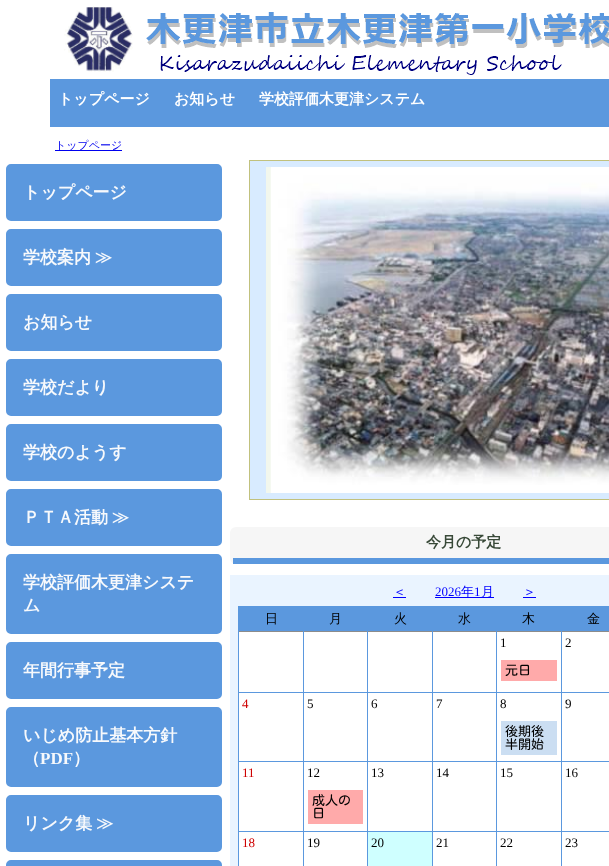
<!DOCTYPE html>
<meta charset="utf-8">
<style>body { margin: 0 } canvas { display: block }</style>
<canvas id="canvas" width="609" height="866"></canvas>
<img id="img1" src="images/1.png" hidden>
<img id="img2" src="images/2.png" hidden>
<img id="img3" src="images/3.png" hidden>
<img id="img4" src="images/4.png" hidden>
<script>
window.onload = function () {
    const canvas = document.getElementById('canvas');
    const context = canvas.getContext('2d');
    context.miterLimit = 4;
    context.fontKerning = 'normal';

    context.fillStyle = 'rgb(255, 255, 255)';
    context.fillRect(0, 0, 609, 866);
    context.drawImage(document.getElementById('img1'), 64, 6, 69, 66);
    context.drawImage(document.getElementById('img2'), 146, 12, 463, 36);
    context.drawImage(document.getElementById('img3'), 160, 55, 402, 20);
    context.fillStyle = 'rgb(91, 152, 222)';
    context.fillRect(50, 79, 559, 48);
    context.fillStyle = 'rgb(0, 0, 238)';
    context.fillRect(55, 150, 67, 1);
    context.fillStyle = 'rgb(91, 152, 222)';
    context.beginPath();
    context.roundRect(10.5, 168.5, 207, 48, 0.5);
    context.fill();
    context.strokeStyle = 'rgb(91, 152, 222)';
    context.lineWidth = 9;
    context.stroke();
    context.beginPath();
    context.roundRect(10.5, 233.5, 207, 48, 0.5);
    context.fill();
    context.stroke();
    context.beginPath();
    context.roundRect(10.5, 298.5, 207, 48, 0.5);
    context.fill();
    context.stroke();
    context.beginPath();
    context.roundRect(10.5, 363.5, 207, 48, 0.5);
    context.fill();
    context.stroke();
    context.beginPath();
    context.roundRect(10.5, 428.5, 207, 48, 0.5);
    context.fill();
    context.stroke();
    context.beginPath();
    context.roundRect(10.5, 493.5, 207, 48, 0.5);
    context.fill();
    context.stroke();
    context.beginPath();
    context.roundRect(10.5, 558.5, 207, 71, 0.5);
    context.fill();
    context.stroke();
    context.beginPath();
    context.roundRect(10.5, 646.5, 207, 48, 0.5);
    context.fill();
    context.stroke();
    context.beginPath();
    context.roundRect(10.5, 711.5, 207, 71, 0.5);
    context.fill();
    context.stroke();
    context.beginPath();
    context.roundRect(10.5, 799.5, 207, 48, 0.5);
    context.fill();
    context.stroke();
    context.beginPath();
    context.roundRect(10.5, 864.5, 207, 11, 0.5);
    context.stroke();
    context.strokeStyle = 'rgb(193, 193, 125)';
    context.lineWidth = 1;
    context.strokeRect(249.5, 160.5, 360, 339);
    context.fillStyle = 'rgb(216, 235, 255)';
    context.fillRect(250, 161, 359, 338);
    context.fillStyle = 'rgb(242, 247, 237)';
    context.fillRect(266, 167, 5, 326);
    context.drawImage(document.getElementById('img4'), 270, 167, 339, 326);
    context.fillStyle = 'rgb(246, 246, 246)';
    context.beginPath();
    context.roundRect(230, 527, 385, 37, 6);
    context.fill();
    context.fillStyle = 'rgb(91, 152, 222)';
    context.fillRect(233, 558, 376, 6);
    context.fillStyle = 'rgb(234, 244, 255)';
    context.fillRect(230, 575, 379, 291);
    context.fillStyle = 'rgb(0, 0, 255)';
    context.fillRect(393, 597, 13, 1);
    context.fillRect(435, 597, 59, 1);
    context.fillRect(523, 597, 13, 1);
    context.fillStyle = 'rgb(91, 152, 222)';
    context.fillRect(238, 606, 371, 25);
    context.fillStyle = 'rgb(255, 255, 255)';
    context.fillRect(239, 632, 370, 234);
    context.fillStyle = 'rgb(140, 140, 140)';
    context.fillRect(238, 631, 371, 1);
    context.fillStyle = 'rgb(91, 152, 222)';
    context.fillRect(561, 692, 48, 1);
    context.fillRect(561, 761, 48, 1);
    context.fillRect(561, 831, 48, 1);
    context.fillRect(561, 855, 1, 11);
    context.fillRect(561, 831, 1, 25);
    context.fillRect(496, 831, 66, 1);
    context.fillRect(561, 786, 1, 46);
    context.fillRect(561, 761, 1, 26);
    context.fillRect(496, 761, 66, 1);
    context.fillRect(561, 716, 1, 46);
    context.fillRect(561, 692, 1, 25);
    context.fillRect(496, 692, 66, 1);
    context.fillRect(496, 855, 1, 11);
    context.fillRect(496, 831, 1, 25);
    context.fillRect(432, 831, 65, 1);
    context.fillRect(496, 786, 1, 46);
    context.fillRect(496, 761, 1, 26);
    context.fillRect(432, 761, 65, 1);
    context.fillRect(496, 716, 1, 46);
    context.fillRect(496, 692, 1, 25);
    context.fillRect(432, 692, 65, 1);
    context.fillRect(432, 855, 1, 11);
    context.fillRect(432, 831, 1, 25);
    context.fillRect(367, 831, 66, 1);
    context.fillRect(432, 786, 1, 46);
    context.fillRect(432, 761, 1, 26);
    context.fillRect(367, 761, 66, 1);
    context.fillRect(432, 716, 1, 46);
    context.fillRect(432, 692, 1, 25);
    context.fillRect(367, 692, 66, 1);
    context.fillRect(367, 855, 1, 11);
    context.fillRect(367, 831, 1, 25);
    context.fillRect(303, 831, 65, 1);
    context.fillRect(367, 786, 1, 46);
    context.fillRect(367, 761, 1, 26);
    context.fillRect(303, 761, 65, 1);
    context.fillRect(367, 716, 1, 46);
    context.fillRect(367, 692, 1, 25);
    context.fillRect(303, 692, 65, 1);
    context.fillRect(303, 855, 1, 11);
    context.fillRect(303, 831, 1, 25);
    context.fillRect(238, 831, 66, 1);
    context.fillRect(303, 786, 1, 46);
    context.fillRect(303, 761, 1, 26);
    context.fillRect(238, 761, 66, 1);
    context.fillRect(303, 716, 1, 46);
    context.fillRect(303, 692, 1, 25);
    context.fillRect(238, 692, 66, 1);
    context.fillRect(303, 631, 1, 62);
    context.fillRect(367, 631, 1, 62);
    context.fillRect(432, 631, 1, 62);
    context.fillRect(496, 631, 1, 62);
    context.fillStyle = 'rgb(255, 170, 170)';
    context.fillRect(501, 660, 56, 21);
    context.fillStyle = 'rgb(91, 152, 222)';
    context.fillRect(561, 631, 1, 62);
    context.fillRect(238, 855, 1, 11);
    context.fillRect(238, 786, 1, 70);
    context.fillRect(238, 716, 1, 71);
    context.fillRect(238, 631, 1, 86);
    context.fillStyle = 'rgb(203, 222, 242)';
    context.fillRect(501, 721, 56, 34);
    context.fillStyle = 'rgb(255, 170, 170)';
    context.fillRect(308, 790, 55, 34);
    context.fillStyle = 'rgb(207, 255, 255)';
    context.fillRect(368, 832, 64, 34);
    context.font = 'bold 15px WenQuanYi Zen Hei';
    context.fillStyle = 'rgb(255, 255, 255)';
    context.fillText('トップページ', 58, 104);
    context.fillText('お知らせ', 174, 104);
    context.fillText('学校評価木更津システム', 259, 104);
    context.font = '500 11px WenQuanYi Zen Hei';
    context.fillStyle = 'rgb(0, 0, 238)';
    context.fillText('トップページ', 55, 149);
    context.font = 'bold 17px WenQuanYi Zen Hei';
    context.fillStyle = 'rgb(247, 249, 252)';
    context.fillText('トップページ', 23, 198);
    context.wordSpacing = '-1px';
    context.fillText('学校案内 ≫', 23, 263);
    context.wordSpacing = '0px';
    context.fillText('お知らせ', 23, 328);
    context.fillText('学校だより', 23, 393);
    context.fillText('学校のようす', 23, 458);
    context.wordSpacing = '-1px';
    context.fillText('ＰＴＡ活動 ≫', 23, 523);
    context.wordSpacing = '0px';
    context.fillText('学校評価木更津システ', 23, 588);
    context.fillText('ム', 23, 611);
    context.fillText('年間行事予定', 23, 676);
    context.fillText('いじめ防止基本方針', 23, 741);
    context.fillText('（', 23, 764);
    context.font = 'bold 17px Liberation Serif';
    context.fillText('PDF', 40, 764);
    context.font = 'bold 17px WenQuanYi Zen Hei';
    context.fillText('）', 73, 764);
    context.wordSpacing = '-1px';
    context.fillText('リンク集 ≫', 23, 829);
    context.wordSpacing = '0px';
    context.font = 'bold 15px WenQuanYi Zen Hei';
    context.fillStyle = 'rgb(56, 73, 56)';
    context.fillText('今月の予定', 426, 547);
    context.font = '500 13px WenQuanYi Zen Hei';
    context.fillStyle = 'rgb(0, 0, 255)';
    context.fillText('＜', 393, 596);
    context.font = '13px Liberation Serif';
    context.fillText('2026', 435, 596);
    context.font = '500 13px WenQuanYi Zen Hei';
    context.fillText('年', 461, 596);
    context.font = '13px Liberation Serif';
    context.fillText('1', 474, 596);
    context.font = '500 13px WenQuanYi Zen Hei';
    context.fillText('月', 481, 596);
    context.fillText('＞', 523, 596);
    context.fillStyle = 'rgb(0, 0, 0)';
    context.fillText('日', 265, 623);
    context.fillText('月', 329, 623);
    context.fillText('火', 394, 623);
    context.fillText('水', 458, 623);
    context.fillText('木', 522, 623);
    context.fillText('金', 587, 623);
    context.font = '13px Liberation Serif';
    context.fillText('1', 500, 647);
    context.fillText('2', 565, 647);
    context.font = '13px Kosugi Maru';
    context.fillText('元日', 505, 675);
    context.font = '13px Liberation Serif';
    context.fillStyle = 'rgb(206, 0, 0)';
    context.fillText('4', 242, 708);
    context.fillStyle = 'rgb(0, 0, 0)';
    context.fillText('5', 307, 708);
    context.fillText('6', 371, 708);
    context.fillText('7', 436, 708);
    context.fillText('8', 500, 708);
    context.fillText('9', 565, 708);
    context.font = '13px Kosugi Maru';
    context.fillText('後期後', 505, 736);
    context.fillText('半開始', 505, 749);
    context.font = '13px Liberation Serif';
    context.fillStyle = 'rgb(206, 0, 0)';
    context.fillText('11', 242, 777);
    context.fillStyle = 'rgb(0, 0, 0)';
    context.fillText('12', 307, 777);
    context.fillText('13', 371, 777);
    context.fillText('14', 436, 777);
    context.fillText('15', 500, 777);
    context.fillText('16', 565, 777);
    context.font = '13px Kosugi Maru';
    context.fillText('成人の', 312, 805);
    context.fillText('日', 312, 818);
    context.font = '13px Liberation Serif';
    context.fillStyle = 'rgb(206, 0, 0)';
    context.fillText('18', 242, 847);
    context.fillStyle = 'rgb(0, 0, 0)';
    context.fillText('19', 307, 847);
    context.fillText('20', 371, 847);
    context.fillText('21', 436, 847);
    context.fillText('22', 500, 847);
    context.fillText('23', 565, 847);
};
</script>
